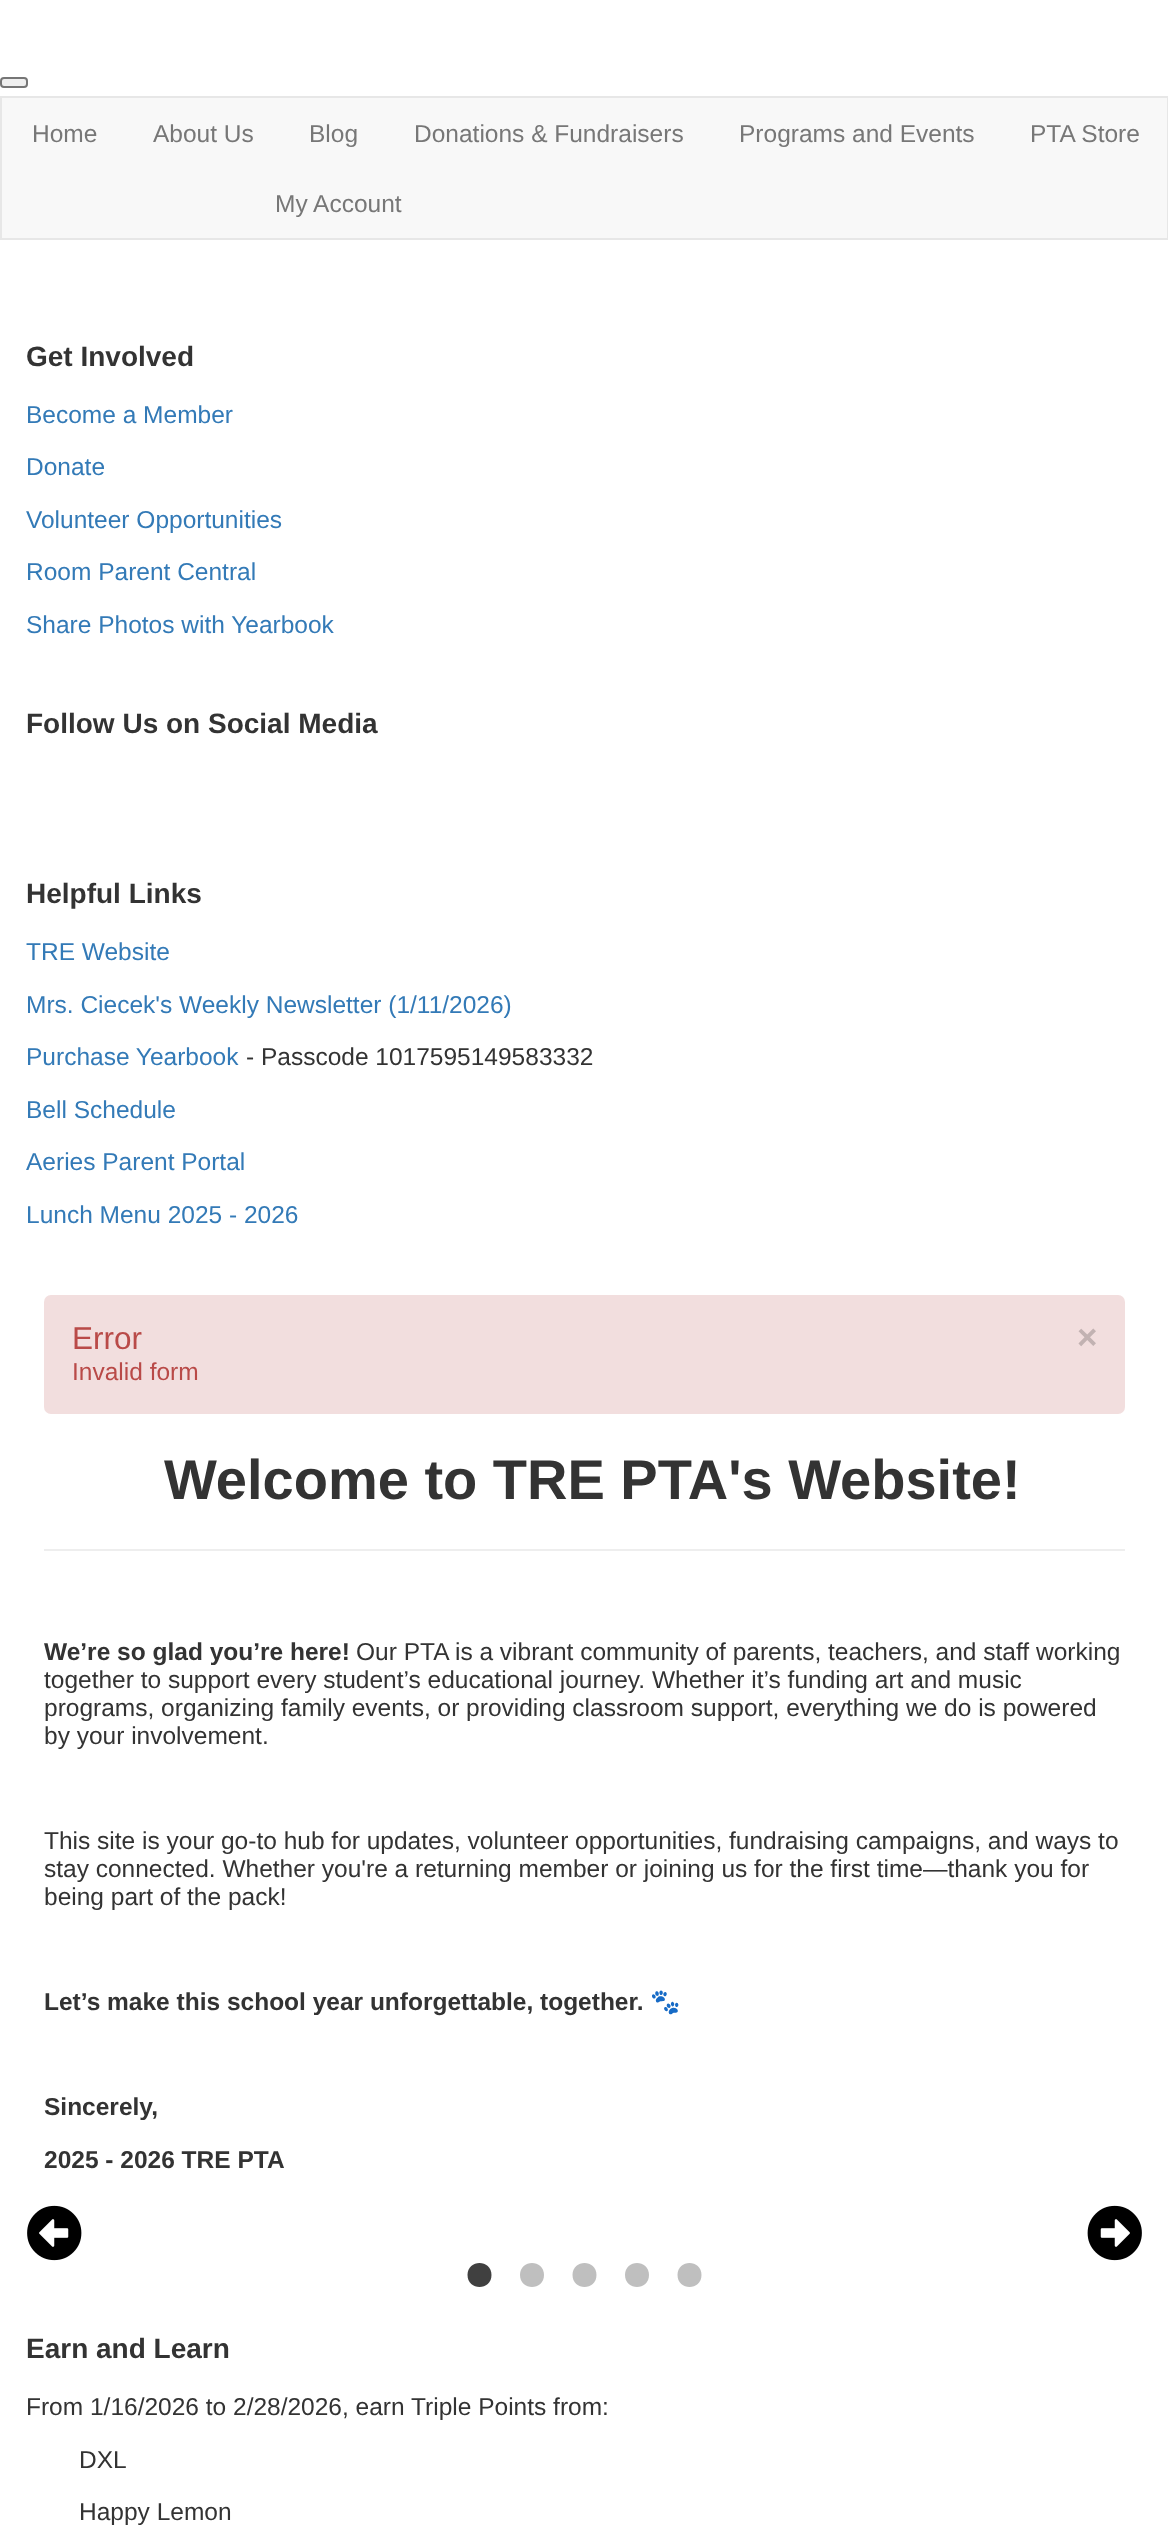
<!DOCTYPE html>
<meta charset="utf-8">
<style>body { margin: 0 } canvas { display: block }</style>
<canvas id="canvas" width="1168" height="2545"></canvas>
<img id="img1" src="images/1.png" hidden>
<img id="img2" src="images/2.png" hidden>
<script>
window.onload = function () {
    const canvas = document.getElementById('canvas');
    const context = canvas.getContext('2d');
    context.miterLimit = 4;
    context.fontKerning = 'normal';

    context.fillStyle = 'rgb(255, 255, 255)';
    context.fillRect(0, 0, 1168, 2545);
    context.fillStyle = 'rgb(239, 239, 239)';
    context.beginPath();
    context.roundRect(1, 78, 26, 9, 3);
    context.fill();
    context.strokeStyle = 'rgb(118, 118, 118)';
    context.lineWidth = 2;
    context.stroke();
    context.fillStyle = 'rgb(248, 248, 248)';
    context.beginPath();
    context.rect(1, 97, 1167, 142);
    context.fill();
    context.strokeStyle = 'rgb(231, 231, 231)';
    context.stroke();
    context.fillStyle = 'rgb(242, 222, 222)';
    context.beginPath();
    context.roundRect(44, 1295, 1081, 119, 7);
    context.fill();
    context.fillStyle = 'rgb(238, 238, 238)';
    context.fillRect(44, 1549, 1081, 2);
    context.drawImage(document.getElementById('img1'), 27, 2205, 55, 56);
    context.drawImage(document.getElementById('img2'), 1087, 2205, 55, 56);
    context.fillStyle = 'rgb(64, 64, 64)';
    context.beginPath();
    context.moveTo(491.5, 2275);
    context.bezierCurveTo(491.5, 2259, 467.5, 2259, 467.5, 2275);
    context.bezierCurveTo(467.5, 2291, 491.5, 2291, 491.5, 2275);
    context.closePath();
    context.fill();
    context.fillStyle = 'rgb(191, 191, 191)';
    context.beginPath();
    context.moveTo(544, 2275);
    context.bezierCurveTo(544, 2259, 520, 2259, 520, 2275);
    context.bezierCurveTo(520, 2291, 544, 2291, 544, 2275);
    context.closePath();
    context.fill();
    context.beginPath();
    context.moveTo(596.5, 2275);
    context.bezierCurveTo(596.5, 2259, 572.5, 2259, 572.5, 2275);
    context.bezierCurveTo(572.5, 2291, 596.5, 2291, 596.5, 2275);
    context.closePath();
    context.fill();
    context.beginPath();
    context.moveTo(649, 2275);
    context.bezierCurveTo(649, 2259, 625, 2259, 625, 2275);
    context.bezierCurveTo(625, 2291, 649, 2291, 649, 2275);
    context.closePath();
    context.fill();
    context.beginPath();
    context.moveTo(701.5, 2275);
    context.bezierCurveTo(701.5, 2259, 677.5, 2259, 677.5, 2275);
    context.bezierCurveTo(677.5, 2291, 701.5, 2291, 701.5, 2275);
    context.closePath();
    context.fill();
    context.font = '24.5px Liberation Sans';
    context.fillStyle = 'rgb(119, 119, 119)';
    context.fillText('Home', 32, 142);
    context.fillText('About Us', 153, 142);
    context.fillText('Blog', 309, 142);
    context.fillText('Donations & Fundraisers', 414, 142);
    context.fillText('Programs and Events', 739, 142);
    context.fillText('PTA Store', 1030, 142);
    context.fillText('My Account', 275, 212);
    context.font = 'bold 28px Liberation Sans';
    context.fillStyle = 'rgb(51, 51, 51)';
    context.fillText('Get Involved', 26, 366);
    context.font = '24.5px Liberation Sans';
    context.fillStyle = 'rgb(51, 122, 183)';
    context.fillText('Become a Member', 26, 423);
    context.fillText('Donate', 26, 475);
    context.fillText('Volunteer Opportunities', 26, 528);
    context.fillText('Room Parent Central', 26, 580);
    context.fillText('Share Photos with Yearbook', 26, 633);
    context.font = 'bold 28px Liberation Sans';
    context.fillStyle = 'rgb(51, 51, 51)';
    context.fillText('Follow Us on Social Media', 26, 733);
    context.fillText('Helpful Links', 26, 903);
    context.font = '24.5px Liberation Sans';
    context.fillStyle = 'rgb(51, 122, 183)';
    context.fillText('TRE Website', 26, 960);
    context.fillText('Mrs. Ciecek\'s Weekly Newsletter (1/11/2026)', 26, 1013);
    context.fillText('Purchase Yearbook', 26, 1065);
    context.fillStyle = 'rgb(51, 51, 51)';
    context.fillText('- Passcode 1017595149583332', 246, 1065);
    context.fillStyle = 'rgb(51, 122, 183)';
    context.fillText('Bell Schedule', 26, 1118);
    context.fillText('Aeries Parent Portal', 26, 1170);
    context.fillText('Lunch Menu 2025 - 2026', 26, 1223);
    context.font = '31.5px Liberation Sans';
    context.fillStyle = 'rgb(185, 74, 72)';
    context.fillText('Error', 72, 1349);
    context.font = 'bold 35px Liberation Sans';
    context.fillStyle = 'rgb(194, 178, 178)';
    context.fillText('×', 1077, 1349);
    context.font = '24.5px Liberation Sans';
    context.fillStyle = 'rgb(185, 74, 72)';
    context.fillText('Invalid form', 72, 1380);
    context.font = 'bold 56px Liberation Sans';
    context.fillStyle = 'rgb(51, 51, 51)';
    context.fillText('Welcome to TRE PTA\'s Website!', 164, 1499);
    context.font = 'bold 24.5px Liberation Sans';
    context.fillText('We’re so glad you’re here!', 44, 1660);
    context.font = '24.5px Liberation Sans';
    context.fillText('Our PTA is a vibrant community of parents, teachers, and staff working', 356, 1660);
    context.fillText('together to support every student’s educational journey. Whether it’s funding art and music', 44, 1688);
    context.fillText('programs, organizing family events, or providing classroom support, everything we do is powered', 44, 1716);
    context.fillText('by your involvement.', 44, 1744);
    context.fillText('This site is your go-to hub for updates, volunteer opportunities, fundraising campaigns, and ways to', 44, 1849);
    context.fillText('stay connected. Whether you\'re a returning member or joining us for the first time—thank you for', 44, 1877);
    context.fillText('being part of the pack!', 44, 1905);
    context.font = 'bold 24.5px Liberation Sans';
    context.fillText('Let’s make this school year unforgettable, together.', 44, 2010);
    context.font = 'bold 24.5px Noto Color Emoji';
    context.fillText('🐾', 650, 2010);
    context.font = 'bold 24.5px Liberation Sans';
    context.fillText('Sincerely,', 44, 2115);
    context.fillText('2025 - 2026 TRE PTA', 44, 2168);
    context.font = 'bold 28px Liberation Sans';
    context.fillText('Earn and Learn', 26, 2358);
    context.font = '24.5px Liberation Sans';
    context.fillText('From 1/16/2026 to 2/28/2026, earn Triple Points from:', 26, 2415);
    context.fillText('DXL', 79, 2468);
    context.fillText('Happy Lemon', 79, 2520);
};
</script>
